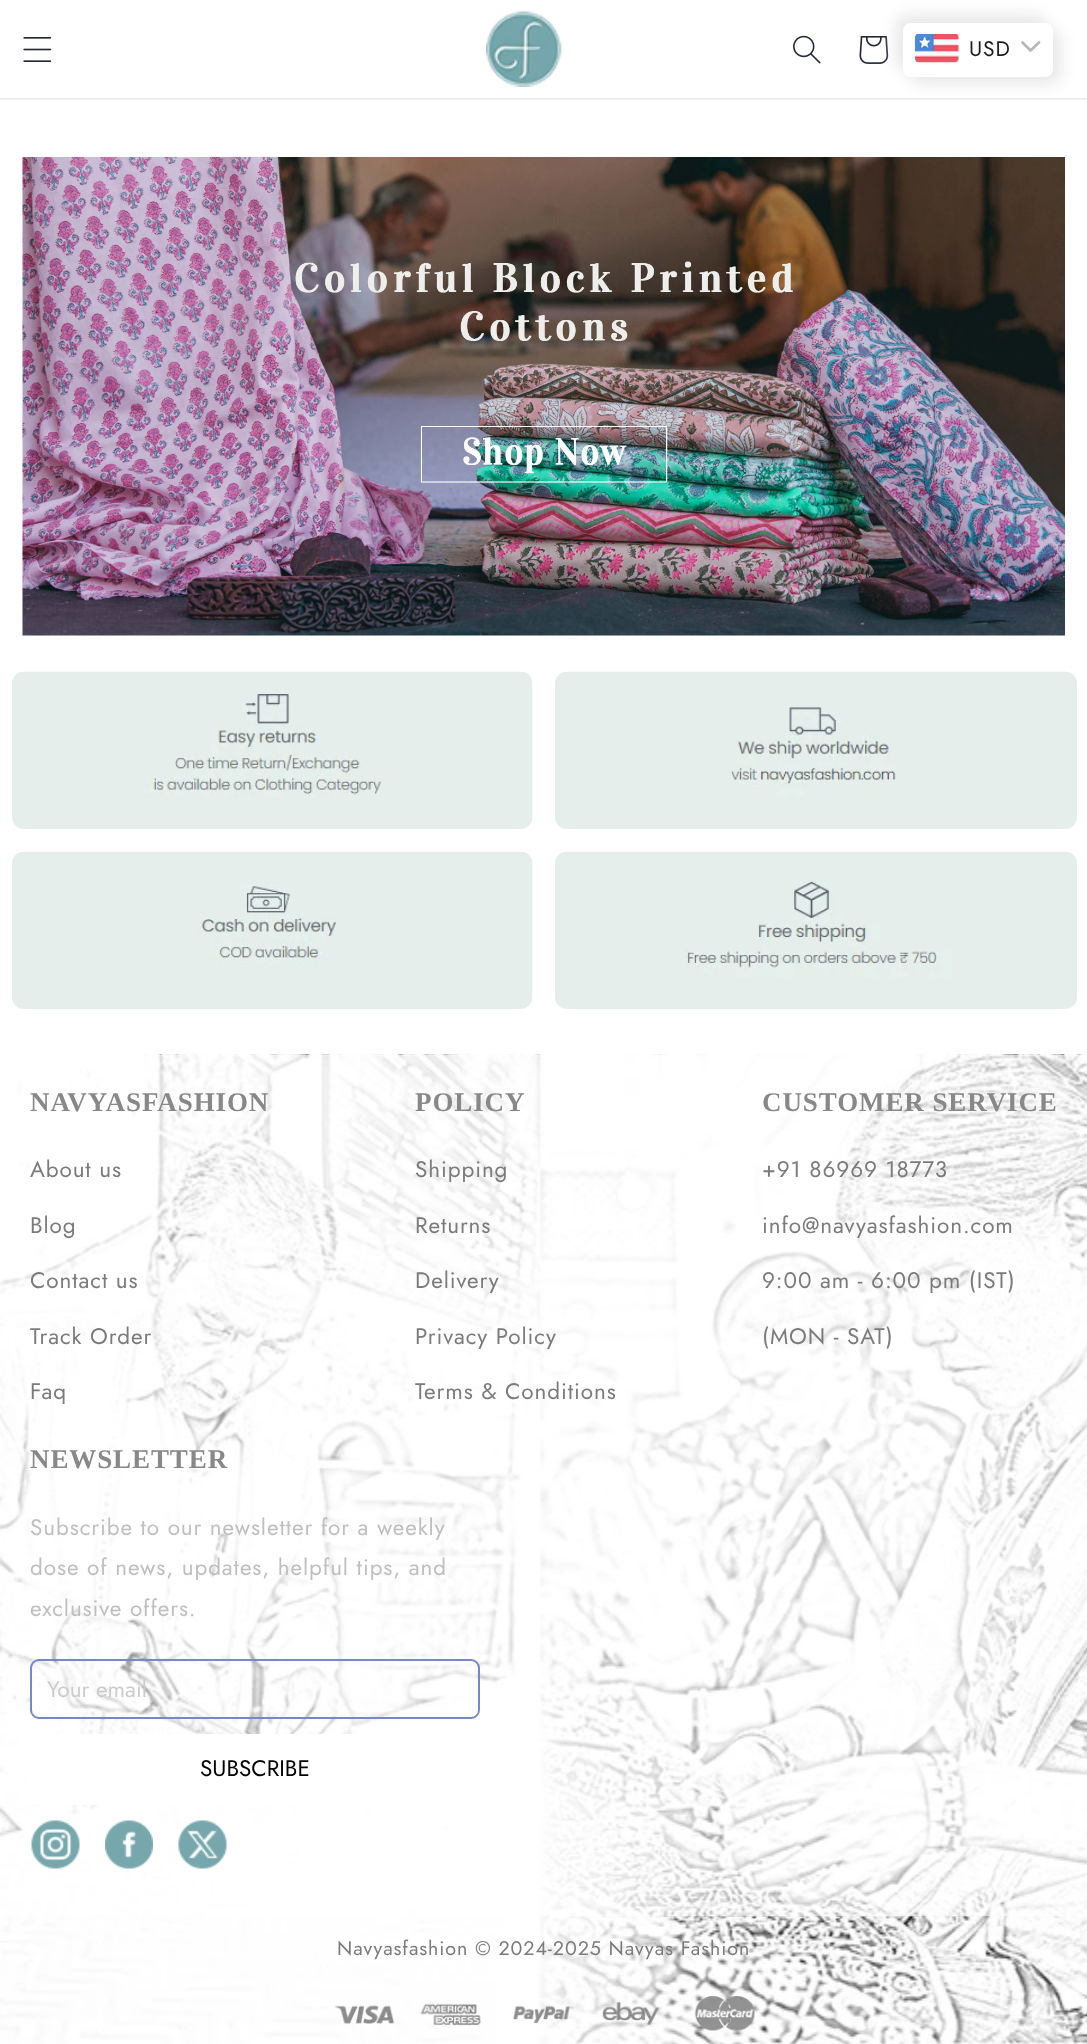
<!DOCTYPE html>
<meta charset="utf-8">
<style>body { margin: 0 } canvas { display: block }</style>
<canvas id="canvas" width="1087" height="2044"></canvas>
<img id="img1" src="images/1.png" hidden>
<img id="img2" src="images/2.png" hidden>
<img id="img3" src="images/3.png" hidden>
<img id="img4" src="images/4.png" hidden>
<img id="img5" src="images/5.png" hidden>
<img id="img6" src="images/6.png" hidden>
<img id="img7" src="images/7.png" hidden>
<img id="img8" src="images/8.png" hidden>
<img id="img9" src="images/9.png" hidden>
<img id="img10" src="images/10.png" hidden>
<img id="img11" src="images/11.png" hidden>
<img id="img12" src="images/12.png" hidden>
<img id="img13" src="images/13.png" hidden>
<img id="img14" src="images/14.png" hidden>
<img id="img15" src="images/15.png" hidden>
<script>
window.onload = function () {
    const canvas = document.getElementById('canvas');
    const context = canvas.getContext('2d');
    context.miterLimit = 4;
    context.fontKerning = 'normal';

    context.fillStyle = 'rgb(255, 255, 255)';
    context.fillRect(0, 0, 1087, 2044);
    context.fillStyle = 'rgb(237, 238, 239)';
    context.fillRect(0, 98, 1087, 2);
    context.drawImage(document.getElementById('img1'), 23, 37, 29, 25);
    context.drawImage(document.getElementById('img2'), 486, 10, 76, 77);
    context.drawImage(document.getElementById('img3'), 793, 35, 28, 29);
    context.drawImage(document.getElementById('img4'), 859, 36, 30, 28);
    context.fillStyle = 'rgb(232, 232, 232)';
    context.filter = 'blur(7.5px)';
    context.beginPath();
    context.roundRect(896, 15, 150, 54, 8);
    context.fill();
    context.filter = 'none';
    context.filter = 'blur(7.5px)';
    context.beginPath();
    context.roundRect(911, 30, 150, 54, 8);
    context.fill();
    context.filter = 'none';
    context.fillStyle = 'rgb(255, 255, 255)';
    context.beginPath();
    context.roundRect(903, 23, 150, 54, 8);
    context.fill();
    context.drawImage(document.getElementById('img5'), 915, 34, 44, 29);
    context.beginPath();
    context.moveTo(1022.5, 42.5);
    context.lineTo(1030.5, 50.5);
    context.lineTo(1039, 42.5);
    context.strokeStyle = 'rgb(183, 183, 183)';
    context.lineWidth = 2.7;
    context.lineCap = 'round';
    context.lineJoin = 'round';
    context.stroke();
    context.drawImage(document.getElementById('img6'), 22, 157, 1043, 479);
    context.drawImage(document.getElementById('img7'), 12, 671, 521, 158);
    context.drawImage(document.getElementById('img8'), 555, 671, 522, 158);
    context.drawImage(document.getElementById('img9'), 12, 851, 521, 158);
    context.drawImage(document.getElementById('img10'), 555, 851, 522, 158);
    context.drawImage(document.getElementById('img11'), 0, 1054, 1087, 990);
    context.fillStyle = 'rgba(255, 255, 255, 0.58)';
    context.fillRect(0, 1055, 1087, 861);
    context.beginPath();
    context.roundRect(31, 1660, 448, 58, 8);
    context.strokeStyle = 'rgb(116, 137, 198)';
    context.lineWidth = 2;
    context.lineJoin = 'miter';
    context.stroke();
    context.fillStyle = 'rgb(255, 255, 255)';
    context.beginPath();
    context.roundRect(30, 1734, 450, 71, 9);
    context.fill();
    context.drawImage(document.getElementById('img12'), 31, 1820, 49, 49);
    context.drawImage(document.getElementById('img13'), 105, 1820, 48, 49);
    context.drawImage(document.getElementById('img14'), 178, 1820, 49, 49);
    context.drawImage(document.getElementById('img15'), 334, 1996, 421, 35);
    context.letterSpacing = '0.9px';
    context.font = '21px Jost';
    context.fillStyle = 'rgb(30, 30, 30)';
    context.fillText('USD', 969, 56);
    context.font = 'bold 27px Liberation Serif';
    context.fillStyle = 'rgb(136, 136, 136)';
    context.fillText('NAVYASFASHION', 30, 1111);
    context.font = '22.5px Jost';
    context.fillStyle = 'rgb(123, 123, 123)';
    context.fillText('About us', 30, 1177);
    context.fillText('Blog', 30, 1233);
    context.fillText('Contact us', 30, 1288);
    context.fillText('Track Order', 30, 1344);
    context.fillText('Faq', 30, 1399);
    context.font = 'bold 27px Liberation Serif';
    context.fillStyle = 'rgb(136, 136, 136)';
    context.fillText('POLICY', 415, 1111);
    context.font = '22.5px Jost';
    context.fillStyle = 'rgb(123, 123, 123)';
    context.fillText('Shipping', 415, 1177);
    context.fillText('Returns', 415, 1233);
    context.fillText('Delivery', 415, 1288);
    context.fillText('Privacy Policy', 415, 1344);
    context.fillText('Terms & Conditions', 415, 1399);
    context.font = 'bold 27px Liberation Serif';
    context.fillStyle = 'rgb(136, 136, 136)';
    context.fillText('CUSTOMER SERVICE', 762, 1111);
    context.font = '22.5px Jost';
    context.fillStyle = 'rgb(123, 123, 123)';
    context.fillText('+91 86969 18773', 762, 1177);
    context.fillText('info@navyasfashion.com', 762, 1233);
    context.fillText('9:00 am - 6:00 pm (IST)', 762, 1288);
    context.fillText('(MON - SAT)', 762, 1344);
    context.font = 'bold 27px Liberation Serif';
    context.fillStyle = 'rgb(136, 136, 136)';
    context.fillText('NEWSLETTER', 30, 1468);
    context.font = '22.5px Jost';
    context.fillStyle = 'rgb(191, 191, 191)';
    context.fillText('Subscribe to our newsletter for a weekly', 30, 1535);
    context.fillText('dose of news, updates, helpful tips, and', 30, 1575);
    context.fillText('exclusive offers.', 30, 1616);
    context.letterSpacing = '0px';
    context.fillStyle = 'rgb(204, 204, 204)';
    context.fillText('Your email', 47, 1697);
    context.fillStyle = 'rgb(0, 0, 0)';
    context.fillText('SUBSCRIBE', 200, 1776);
    context.letterSpacing = '0.9px';
    context.font = '19.7px Jost';
    context.fillStyle = 'rgb(123, 123, 123)';
    context.fillText('Navyasfashion © 2024-2025 Navyas Fashion', 337, 1955);
};
</script>
